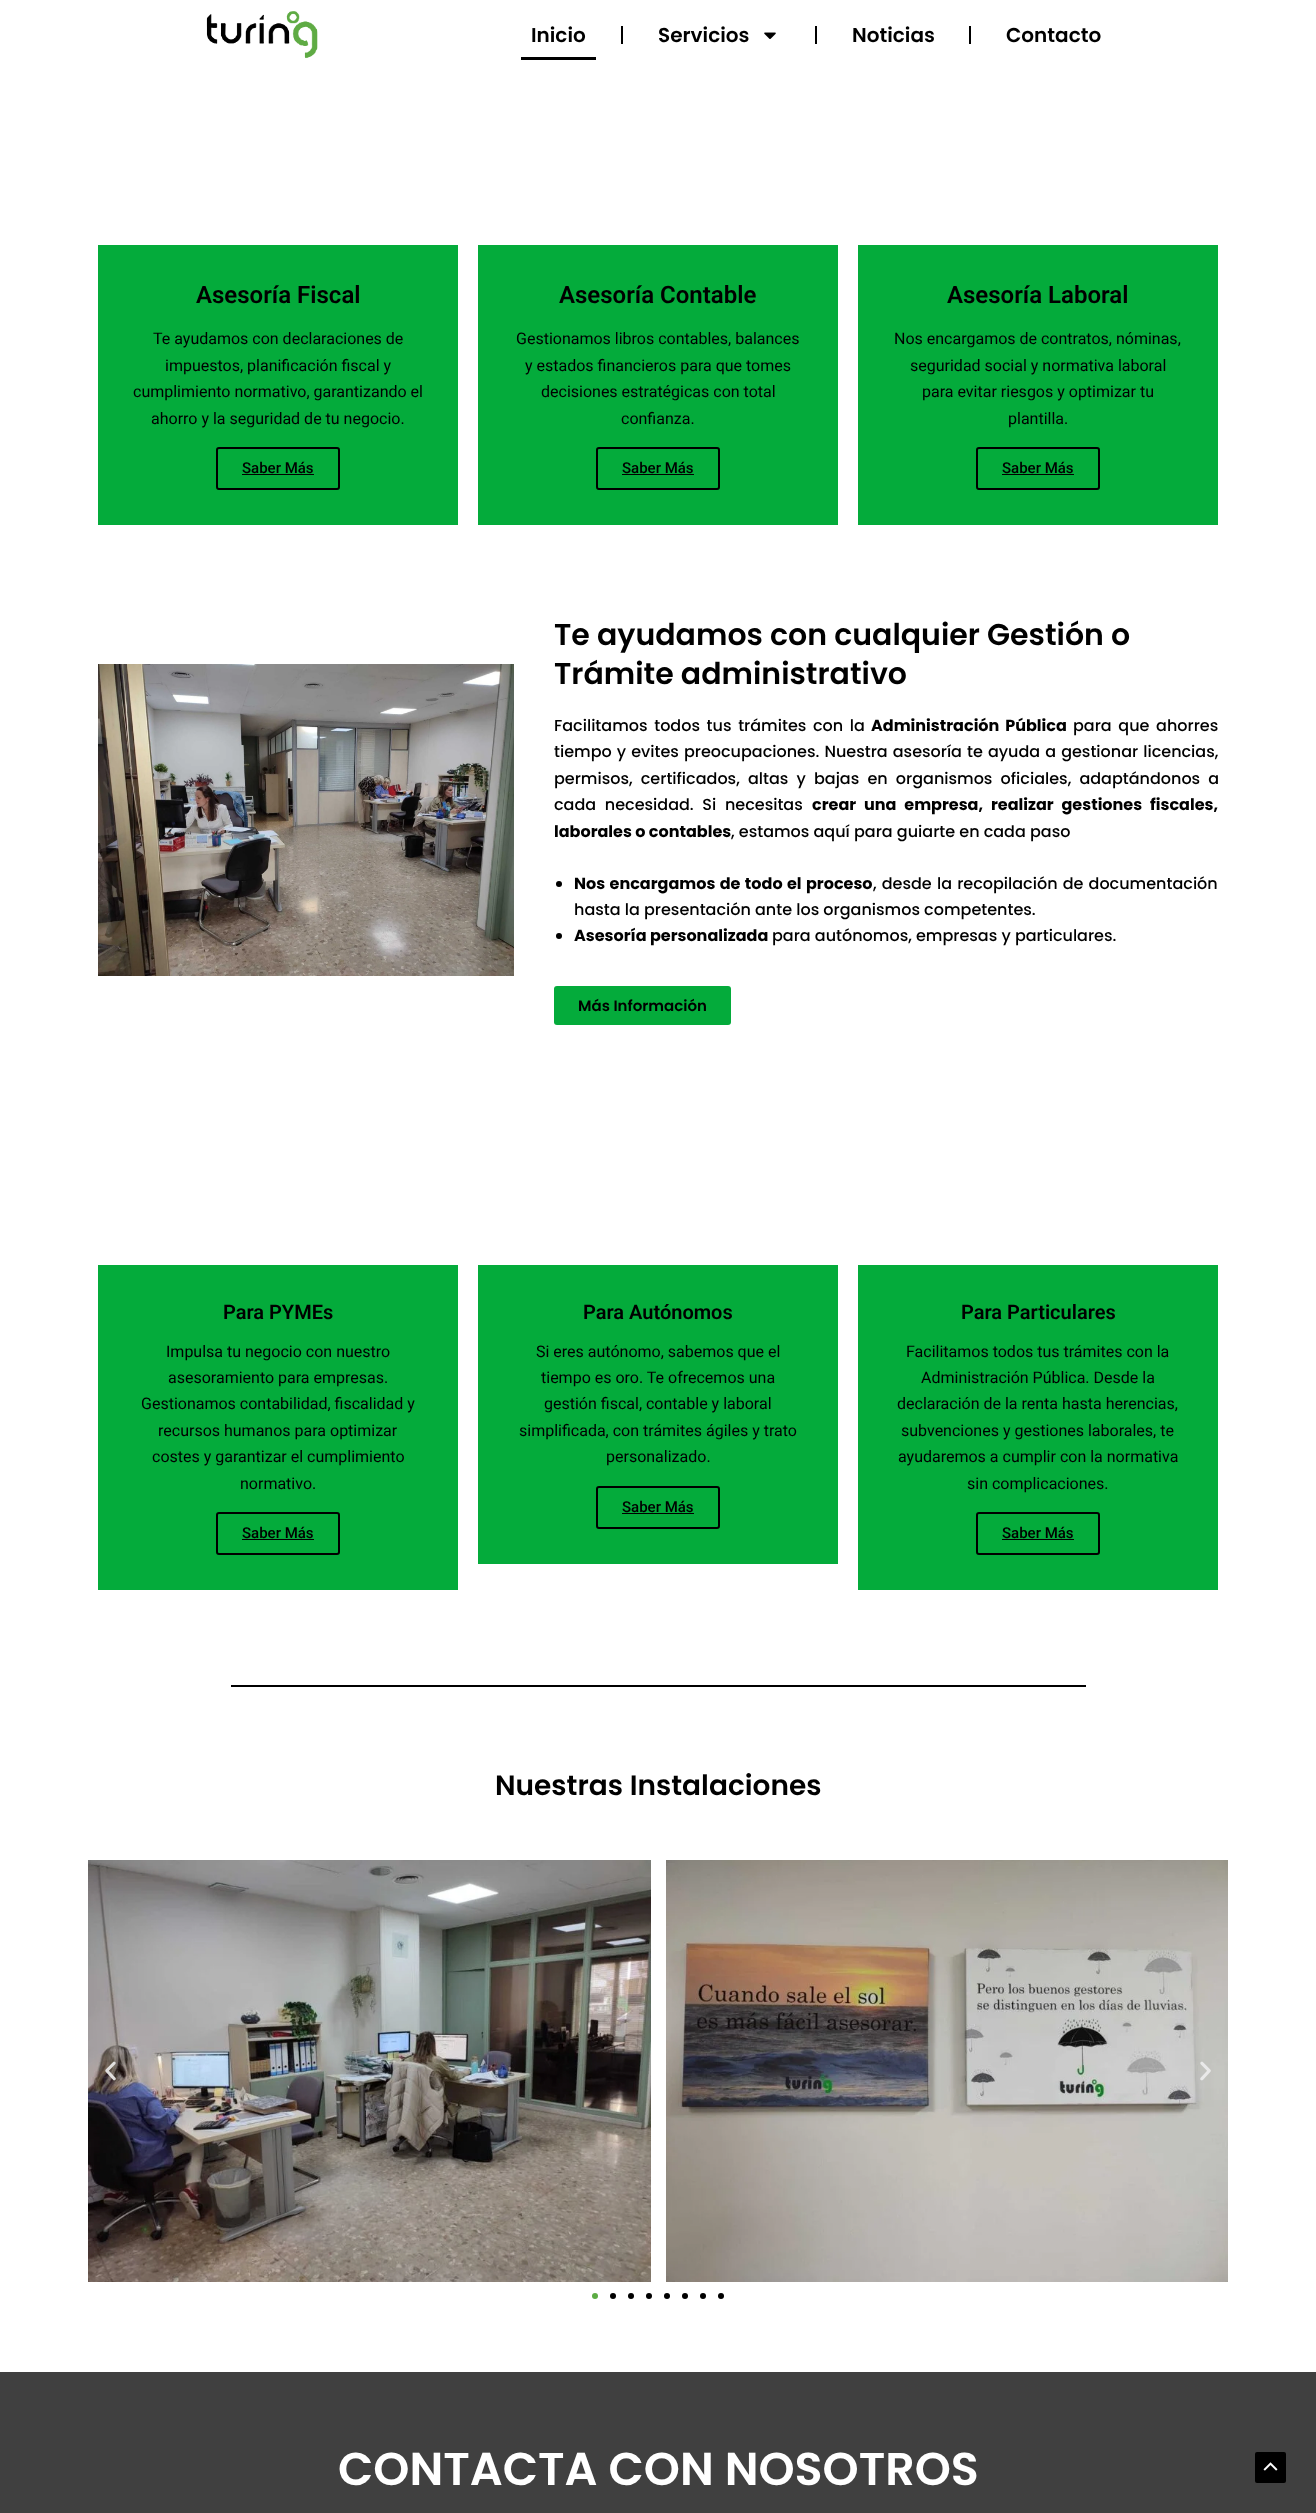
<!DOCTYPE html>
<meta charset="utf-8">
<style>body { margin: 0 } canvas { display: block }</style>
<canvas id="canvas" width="1316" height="2513"></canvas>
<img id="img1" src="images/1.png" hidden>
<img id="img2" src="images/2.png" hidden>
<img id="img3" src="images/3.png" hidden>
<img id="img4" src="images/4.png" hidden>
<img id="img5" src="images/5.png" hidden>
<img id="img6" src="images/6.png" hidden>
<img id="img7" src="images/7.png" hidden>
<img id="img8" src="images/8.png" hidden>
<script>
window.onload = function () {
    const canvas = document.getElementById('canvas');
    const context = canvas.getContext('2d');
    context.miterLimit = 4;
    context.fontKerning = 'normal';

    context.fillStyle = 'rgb(255, 255, 255)';
    context.fillRect(0, 0, 1316, 2513);
    context.drawImage(document.getElementById('img1'), 206, 11, 112, 48);
    context.fillStyle = 'rgb(0, 0, 0)';
    context.fillRect(521, 57, 75, 3);
    context.fillRect(621, 26, 2, 18);
    context.drawImage(document.getElementById('img2'), 764, 32, 12, 7);
    context.fillRect(815, 26, 2, 18);
    context.fillRect(969, 26, 2, 18);
    context.fillStyle = 'rgb(4, 171, 59)';
    context.fillRect(98, 245, 360, 280);
    context.beginPath();
    context.roundRect(217, 448, 122, 41, 2);
    context.strokeStyle = 'rgb(0, 0, 0)';
    context.lineWidth = 2;
    context.stroke();
    context.fillStyle = 'rgb(0, 0, 0)';
    context.fillRect(242, 474, 72, 1);
    context.fillStyle = 'rgb(4, 171, 59)';
    context.fillRect(478, 245, 360, 280);
    context.beginPath();
    context.roundRect(597, 448, 122, 41, 2);
    context.stroke();
    context.fillStyle = 'rgb(0, 0, 0)';
    context.fillRect(622, 474, 72, 1);
    context.fillStyle = 'rgb(4, 171, 59)';
    context.fillRect(858, 245, 360, 280);
    context.beginPath();
    context.roundRect(977, 448, 122, 41, 2);
    context.stroke();
    context.fillStyle = 'rgb(0, 0, 0)';
    context.fillRect(1002, 474, 72, 1);
    context.drawImage(document.getElementById('img3'), 98, 664, 416, 312);
    context.beginPath();
    context.arc(559, 884, 3, 0, 2 * Math.PI);
    context.fill();
    context.beginPath();
    context.arc(559, 936, 3, 0, 2 * Math.PI);
    context.fill();
    context.fillStyle = 'rgb(4, 171, 59)';
    context.beginPath();
    context.roundRect(554, 986, 177, 39, 3);
    context.fill();
    context.fillRect(98, 1265, 360, 325);
    context.beginPath();
    context.roundRect(217, 1513, 122, 41, 2);
    context.stroke();
    context.fillStyle = 'rgb(0, 0, 0)';
    context.fillRect(242, 1539, 72, 1);
    context.fillStyle = 'rgb(4, 171, 59)';
    context.fillRect(478, 1265, 360, 299);
    context.beginPath();
    context.roundRect(597, 1487, 122, 41, 2);
    context.stroke();
    context.fillStyle = 'rgb(0, 0, 0)';
    context.fillRect(622, 1513, 72, 1);
    context.fillStyle = 'rgb(4, 171, 59)';
    context.fillRect(858, 1265, 360, 325);
    context.beginPath();
    context.roundRect(977, 1513, 122, 41, 2);
    context.stroke();
    context.fillStyle = 'rgb(0, 0, 0)';
    context.fillRect(1002, 1539, 72, 1);
    context.fillRect(231, 1685, 855, 2);
    context.drawImage(document.getElementById('img4'), 88, 1860, 563, 422);
    context.drawImage(document.getElementById('img5'), 666, 1860, 562, 422);
    context.drawImage(document.getElementById('img6'), 105, 2061, 11, 20);
    context.drawImage(document.getElementById('img7'), 1200, 2061, 11, 20);
    context.fillStyle = 'rgb(92, 172, 68)';
    context.beginPath();
    context.arc(595, 2296, 3, 0, 2 * Math.PI);
    context.fill();
    context.fillStyle = 'rgb(0, 0, 0)';
    context.beginPath();
    context.arc(613, 2296, 3, 0, 2 * Math.PI);
    context.fill();
    context.beginPath();
    context.arc(631, 2296, 3, 0, 2 * Math.PI);
    context.fill();
    context.beginPath();
    context.arc(649, 2296, 3, 0, 2 * Math.PI);
    context.fill();
    context.beginPath();
    context.arc(667, 2296, 3, 0, 2 * Math.PI);
    context.fill();
    context.beginPath();
    context.arc(685, 2296, 3, 0, 2 * Math.PI);
    context.fill();
    context.beginPath();
    context.arc(703, 2296, 3, 0, 2 * Math.PI);
    context.fill();
    context.beginPath();
    context.arc(721, 2296, 3, 0, 2 * Math.PI);
    context.fill();
    context.fillStyle = 'rgb(64, 64, 64)';
    context.fillRect(0, 2372, 1316, 141);
    context.fillStyle = 'rgb(0, 0, 0)';
    context.beginPath();
    context.roundRect(1255, 2452, 31, 31, 2);
    context.fill();
    context.drawImage(document.getElementById('img8'), 1263, 2462, 15, 9);
    context.font = '600 20px Poppins';
    context.fillText('Inicio', 531, 42);
    context.fillText('Servicios', 658, 42);
    context.fillText('Noticias', 852, 42);
    context.fillText('Contacto', 1006, 42);
    context.font = '600 24px Roboto';
    context.fillText('Asesoría Fiscal', 196, 303);
    context.font = '16px Roboto';
    context.fillText('Te ayudamos con declaraciones de', 153, 344);
    context.fillText('impuestos, planificación fiscal y', 165, 371);
    context.fillText('cumplimiento normativo, garantizando el', 133, 397);
    context.fillText('ahorro y la seguridad de tu negocio.', 151, 424);
    context.font = '500 15px Roboto';
    context.fillText('Saber Más', 242, 473);
    context.font = '600 24px Roboto';
    context.fillText('Asesoría Contable', 559, 303);
    context.font = '16px Roboto';
    context.fillText('Gestionamos libros contables, balances', 516, 344);
    context.fillText('y estados financieros para que tomes', 525, 371);
    context.fillText('decisiones estratégicas con total', 541, 397);
    context.fillText('confianza.', 621, 424);
    context.font = '500 15px Roboto';
    context.fillText('Saber Más', 622, 473);
    context.font = '600 24px Roboto';
    context.fillText('Asesoría Laboral', 947, 303);
    context.font = '16px Roboto';
    context.fillText('Nos encargamos de contratos, nóminas,', 894, 344);
    context.fillText('seguridad social y normativa laboral', 910, 371);
    context.fillText('para evitar riesgos y optimizar tu', 922, 397);
    context.fillText('plantilla.', 1008, 424);
    context.font = '500 15px Roboto';
    context.fillText('Saber Más', 1002, 473);
    context.font = '600 30px Poppins';
    context.fillText('Te ayudamos con cualquier Gestión o', 554, 645);
    context.fillText('Trámite administrativo', 554, 684);
    context.wordSpacing = '2.5px';
    context.font = '500 16px Poppins';
    context.fillText('Facilitamos todos tus trámites con la', 554, 731);
    context.font = 'bold 16px Poppins';
    context.fillText('Administración Pública', 871, 731);
    context.font = '500 16px Poppins';
    context.fillText('para que ahorres', 1073, 731);
    context.wordSpacing = '0.9px';
    context.fillText('tiempo y evites preocupaciones. Nuestra asesoría te ayuda a gestionar licencias,', 554, 757);
    context.wordSpacing = '4px';
    context.fillText('permisos, certificados, altas y bajas en organismos oficiales, adaptándonos a', 554, 784);
    context.wordSpacing = '4.5px';
    context.fillText('cada necesidad. Si necesitas', 554, 810);
    context.font = 'bold 16px Poppins';
    context.fillText('crear una empresa, realizar gestiones fiscales,', 812, 810);
    context.wordSpacing = '0px';
    context.fillText('laborales o contables', 554, 837);
    context.font = '500 16px Poppins';
    context.fillText(', estamos aquí para guiarte en cada paso', 731, 837);
    context.wordSpacing = '1px';
    context.font = 'bold 16px Poppins';
    context.fillText('Nos encargamos de todo el proceso', 574, 889);
    context.font = '500 16px Poppins';
    context.fillText(', desde la recopilación de documentación', 873, 889);
    context.wordSpacing = '0px';
    context.fillText('hasta la presentación ante los organismos competentes.', 574, 915);
    context.font = 'bold 16px Poppins';
    context.fillText('Asesoría personalizada', 574, 941);
    context.font = '500 16px Poppins';
    context.fillText('para autónomos, empresas y particulares.', 772, 941);
    context.font = '600 15px Poppins';
    context.fillText('Más Información', 578, 1011);
    context.font = '600 20px Roboto';
    context.fillText('Para PYMEs', 223, 1319);
    context.font = '16px Roboto';
    context.fillText('Impulsa tu negocio con nuestro', 166, 1357);
    context.fillText('asesoramiento para empresas.', 168, 1383);
    context.fillText('Gestionamos contabilidad, fiscalidad y', 141, 1409);
    context.fillText('recursos humanos para optimizar', 158, 1436);
    context.fillText('costes y garantizar el cumplimiento', 152, 1462);
    context.fillText('normativo.', 240, 1489);
    context.font = '500 15px Roboto';
    context.fillText('Saber Más', 242, 1538);
    context.font = '600 20px Roboto';
    context.fillText('Para Autónomos', 583, 1319);
    context.font = '16px Roboto';
    context.fillText('Si eres autónomo, sabemos que el', 536, 1357);
    context.fillText('tiempo es oro. Te ofrecemos una', 541, 1383);
    context.fillText('gestión fiscal, contable y laboral', 544, 1409);
    context.fillText('simplificada, con trámites ágiles y trato', 519, 1436);
    context.fillText('personalizado.', 606, 1462);
    context.font = '500 15px Roboto';
    context.fillText('Saber Más', 622, 1512);
    context.font = '600 20px Roboto';
    context.fillText('Para Particulares', 961, 1319);
    context.font = '16px Roboto';
    context.fillText('Facilitamos todos tus trámites con la', 906, 1357);
    context.fillText('Administración Pública. Desde la', 921, 1383);
    context.fillText('declaración de la renta hasta herencias,', 897, 1409);
    context.fillText('subvenciones y gestiones laborales, te', 901, 1436);
    context.fillText('ayudaremos a cumplir con la normativa', 898, 1462);
    context.fillText('sin complicaciones.', 967, 1489);
    context.font = '500 15px Roboto';
    context.fillText('Saber Más', 1002, 1538);
    context.font = '600 28px Poppins';
    context.fillText('Nuestras Instalaciones', 495, 1795);
    context.font = '600 46px Poppins';
    context.fillStyle = 'rgb(255, 255, 255)';
    context.fillText('CONTACTA CON NOSOTROS', 338, 2485);
};
</script>
